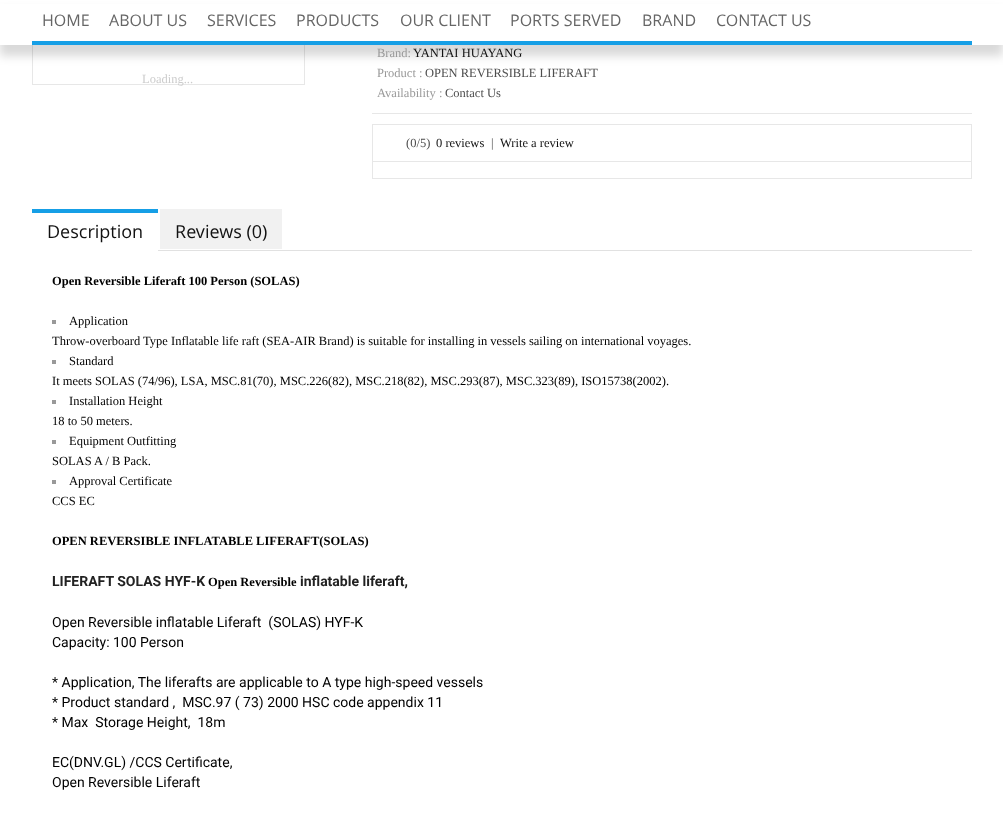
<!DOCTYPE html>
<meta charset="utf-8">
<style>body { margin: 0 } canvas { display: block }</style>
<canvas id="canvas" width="1003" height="823"></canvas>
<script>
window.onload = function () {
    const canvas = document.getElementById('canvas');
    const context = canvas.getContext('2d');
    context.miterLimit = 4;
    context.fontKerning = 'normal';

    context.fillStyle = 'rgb(255, 255, 255)';
    context.fillRect(0, 0, 1003, 823);
    context.strokeStyle = 'rgb(231, 231, 231)';
    context.strokeRect(32.5, 43.5, 272, 41);
    context.fillStyle = 'rgba(0, 0, 0, 0.15)';
    context.filter = 'blur(5px)';
    context.beginPath();
    context.rect(0, 11, 1003, 45);
    context.fill();
    context.filter = 'none';
    context.fillStyle = 'rgb(255, 255, 255)';
    context.fillRect(0, 4, 1003, 41);
    context.fillStyle = 'rgb(22, 159, 230)';
    context.fillRect(32, 41, 940, 4);
    context.fillStyle = 'rgb(231, 231, 231)';
    context.fillRect(372, 113, 600, 1);
    context.fillRect(372, 124, 600, 1);
    context.fillRect(971, 124, 1, 55);
    context.fillRect(372, 124, 1, 55);
    context.fillRect(373, 161, 598, 1);
    context.fillRect(373, 178, 598, 1);
    context.fillStyle = 'rgb(225, 225, 225)';
    context.fillRect(158, 250, 814, 1);
    context.fillStyle = 'rgb(22, 159, 230)';
    context.fillRect(32, 209, 126, 4);
    context.fillStyle = 'rgb(241, 241, 241)';
    context.fillRect(160, 209, 122, 40);
    context.fillStyle = 'rgb(153, 153, 153)';
    context.fillRect(52, 320, 4, 4);
    context.fillRect(52, 360, 4, 4);
    context.fillRect(52, 400, 4, 4);
    context.fillRect(52, 440, 4, 4);
    context.fillRect(52, 480, 4, 4);
    context.font = '16px Open Sans';
    context.fillStyle = 'rgb(102, 102, 102)';
    context.fillText('HOME', 42, 26);
    context.fillText('ABOUT US', 109, 26);
    context.fillText('SERVICES', 207, 26);
    context.fillText('PRODUCTS', 296, 26);
    context.fillText('OUR CLIENT', 400, 26);
    context.fillText('PORTS SERVED', 510, 26);
    context.fillText('BRAND', 642, 26);
    context.fillText('CONTACT US', 716, 26);
    context.font = '12.5px Liberation Serif';
    context.fillStyle = 'rgb(204, 204, 204)';
    context.fillText('Loading...', 142, 83);
    context.fillStyle = 'rgb(153, 153, 153)';
    context.fillText('Brand:', 377, 57);
    context.fillStyle = 'rgb(17, 17, 17)';
    context.fillText('YANTAI HUAYANG', 413, 57);
    context.fillStyle = 'rgb(153, 153, 153)';
    context.fillText('Product :', 377, 77);
    context.fillStyle = 'rgb(77, 77, 77)';
    context.fillText('OPEN REVERSIBLE LIFERAFT', 425, 77);
    context.fillStyle = 'rgb(153, 153, 153)';
    context.fillText('Availability :', 377, 97);
    context.fillStyle = 'rgb(77, 77, 77)';
    context.fillText('Contact Us', 445, 97);
    context.fillText('(0/5)', 406, 147);
    context.fillStyle = 'rgb(17, 17, 17)';
    context.fillText('0 reviews', 436, 147);
    context.fillStyle = 'rgb(77, 77, 77)';
    context.fillText('|', 491, 147);
    context.fillStyle = 'rgb(17, 17, 17)';
    context.fillText('Write a review', 500, 147);
    context.font = '18px Open Sans';
    context.fillText('Description', 47, 238);
    context.fillText('Reviews (0)', 175, 238);
    context.font = 'bold 12.5px Liberation Serif';
    context.fillStyle = 'rgb(0, 0, 0)';
    context.fillText('Open Reversible Liferaft 100 Person (SOLAS)', 52, 285);
    context.font = '12.5px Liberation Serif';
    context.fillText('Application', 69, 325);
    context.fillText('Throw-overboard Type Inflatable life raft (SEA-AIR Brand) is suitable for installing in vessels sailing on international voyages.', 52, 345);
    context.fillText('Standard', 69, 365);
    context.fillText('It meets SOLAS (74/96), LSA, MSC.81(70), MSC.226(82), MSC.218(82), MSC.293(87), MSC.323(89), ISO15738(2002).', 52, 385);
    context.fillText('Installation Height', 69, 405);
    context.fillText('18 to 50 meters.', 52, 425);
    context.fillText('Equipment Outfitting', 69, 445);
    context.fillText('SOLAS A / B Pack.', 52, 465);
    context.fillText('Approval Certificate', 69, 485);
    context.fillText('CCS EC', 52, 505);
    context.font = 'bold 12.5px Liberation Serif';
    context.fillText('OPEN REVERSIBLE INFLATABLE LIFERAFT(SOLAS)', 52, 545);
    context.font = 'bold 14px Roboto';
    context.fillStyle = 'rgb(34, 34, 34)';
    context.fillText('LIFERAFT SOLAS HYF-K', 52, 586);
    context.font = 'bold 12.5px Liberation Serif';
    context.fillStyle = 'rgb(0, 0, 0)';
    context.fillText('Open Reversible', 208, 586);
    context.font = 'bold 14px Roboto';
    context.fillStyle = 'rgb(34, 34, 34)';
    context.fillText('inflatable liferaft,', 300, 586);
    context.font = '14px Roboto';
    context.fillStyle = 'rgb(0, 0, 0)';
    context.fillText('Open Reversible inflatable Liferaft  (SOLAS) HYF-K', 52, 627);
    context.fillText('Capacity: 100 Person', 52, 647);
    context.fillText('* Application, The liferafts are applicable to A type high-speed vessels', 52, 687);
    context.fillText('* Product standard ,  MSC.97 ( 73) 2000 HSC code appendix 11', 52, 707);
    context.fillText('* Max  Storage Height,  18m', 52, 727);
    context.fillText('EC(DNV.GL) /CCS Certificate,', 52, 767);
    context.fillText('Open Reversible Liferaft', 52, 787);
};
</script>
